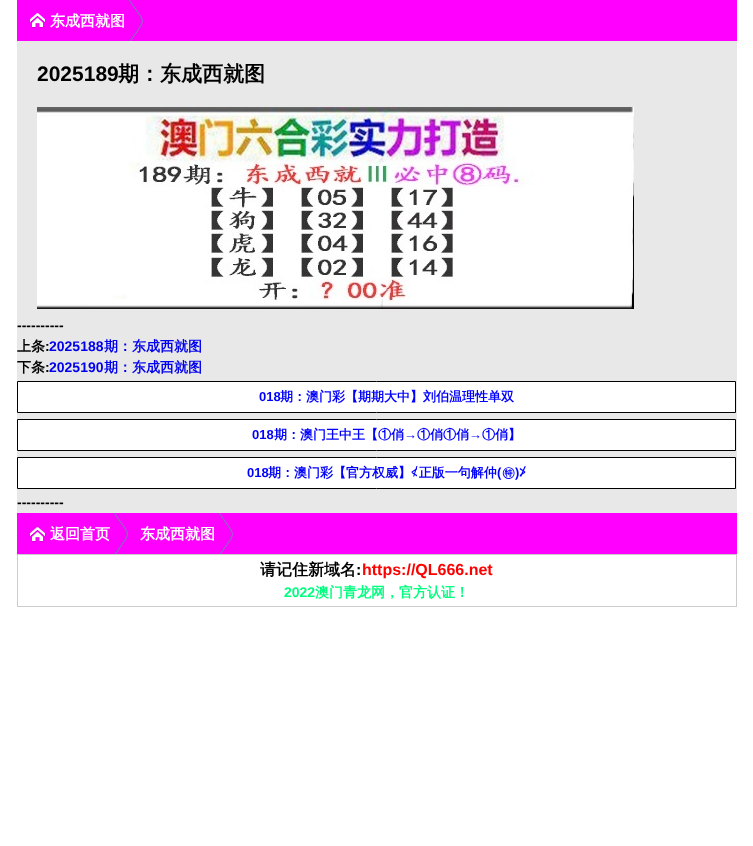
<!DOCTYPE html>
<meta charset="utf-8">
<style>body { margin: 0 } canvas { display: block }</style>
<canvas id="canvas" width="753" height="846"></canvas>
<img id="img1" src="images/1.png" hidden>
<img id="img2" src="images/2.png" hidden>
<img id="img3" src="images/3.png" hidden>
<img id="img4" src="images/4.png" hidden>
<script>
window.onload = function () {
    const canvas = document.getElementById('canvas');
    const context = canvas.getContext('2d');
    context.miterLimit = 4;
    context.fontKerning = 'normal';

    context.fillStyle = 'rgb(255, 255, 255)';
    context.fillRect(0, 0, 753, 846);
    context.fillStyle = 'rgb(232, 232, 232)';
    context.fillRect(17, 41, 720, 472);
    context.fillStyle = 'rgb(255, 0, 255)';
    context.fillRect(17, 0, 720, 41);
    context.drawImage(document.getElementById('img1'), 128, 0, 15, 41);
    context.drawImage(document.getElementById('img2'), 30, 13, 15, 15);
    context.drawImage(document.getElementById('img3'), 37, 107, 597, 202);
    context.fillStyle = 'rgb(255, 255, 255)';
    context.beginPath();
    context.rect(17.5, 381.5, 718, 31);
    context.fill();
    context.strokeStyle = 'rgb(0, 0, 0)';
    context.stroke();
    context.beginPath();
    context.rect(17.5, 419.5, 718, 31);
    context.fill();
    context.stroke();
    context.beginPath();
    context.rect(17.5, 457.5, 718, 31);
    context.fill();
    context.stroke();
    context.fillStyle = 'rgb(255, 0, 255)';
    context.fillRect(17, 513, 720, 41);
    context.drawImage(document.getElementById('img1'), 113, 513, 15, 41);
    context.drawImage(document.getElementById('img2'), 30, 527, 15, 15);
    context.drawImage(document.getElementById('img4'), 218, 513, 15, 41);
    context.fillStyle = 'rgb(204, 204, 204)';
    context.fillRect(17, 554, 720, 1);
    context.fillRect(736, 554, 1, 53);
    context.fillRect(17, 606, 720, 1);
    context.fillRect(17, 554, 1, 53);
    context.font = 'bold 15px WenQuanYi Zen Hei';
    context.fillStyle = 'rgb(255, 255, 255)';
    context.fillText('东成西就图', 50, 26);
    context.font = 'bold 21px Liberation Sans';
    context.fillStyle = 'rgb(0, 0, 0)';
    context.fillText('2025189', 37, 81);
    context.font = 'bold 21px WenQuanYi Zen Hei';
    context.fillText('期：东成西就图', 118, 81);
    context.font = 'bold 14px Liberation Sans';
    context.fillText('----------', 17, 330);
    context.font = 'bold 14px WenQuanYi Zen Hei';
    context.fillText('上条', 17, 351);
    context.font = 'bold 14px Liberation Sans';
    context.fillText(':', 45, 351);
    context.fillStyle = 'rgb(0, 0, 238)';
    context.fillText('2025188', 49, 351);
    context.font = 'bold 14px WenQuanYi Zen Hei';
    context.fillText('期：东成西就图', 104, 351);
    context.fillStyle = 'rgb(0, 0, 0)';
    context.fillText('下条', 17, 372);
    context.font = 'bold 14px Liberation Sans';
    context.fillText(':', 45, 372);
    context.fillStyle = 'rgb(0, 0, 238)';
    context.fillText('2025190', 49, 372);
    context.font = 'bold 14px WenQuanYi Zen Hei';
    context.fillText('期：东成西就图', 104, 372);
    context.font = 'bold 13px Liberation Sans';
    context.fillStyle = 'rgb(0, 0, 255)';
    context.fillText('018', 259, 401);
    context.font = 'bold 13px WenQuanYi Zen Hei';
    context.fillText('期：澳门彩【期期大中】刘伯温理性单双', 280, 401);
    context.font = 'bold 13px Liberation Sans';
    context.fillText('018', 252, 439);
    context.font = 'bold 13px WenQuanYi Zen Hei';
    context.fillText('期：澳门王中王【①俏', 274, 439);
    context.font = 'bold 13px Liberation Sans';
    context.fillText('→', 404, 439);
    context.font = 'bold 13px WenQuanYi Zen Hei';
    context.fillText('①俏①俏', 417, 439);
    context.font = 'bold 13px Liberation Sans';
    context.fillText('→', 469, 439);
    context.font = 'bold 13px WenQuanYi Zen Hei';
    context.fillText('①俏】', 482, 439);
    context.font = 'bold 13px Liberation Sans';
    context.fillText('018', 247, 477);
    context.font = 'bold 13px WenQuanYi Zen Hei';
    context.fillText('期：澳门彩【官方权威】≮正版一句解仲', 268, 477);
    context.font = 'bold 13px Liberation Sans';
    context.fillText('(', 497, 477);
    context.font = 'bold 13px WenQuanYi Zen Hei';
    context.fillText('㊕', 502, 477);
    context.font = 'bold 13px Liberation Sans';
    context.fillText(')', 515, 477);
    context.font = 'bold 13px WenQuanYi Zen Hei';
    context.fillText('≯', 519, 477);
    context.font = 'bold 14px Liberation Sans';
    context.fillStyle = 'rgb(0, 0, 0)';
    context.fillText('----------', 17, 507);
    context.font = 'bold 15px WenQuanYi Zen Hei';
    context.fillStyle = 'rgb(255, 255, 255)';
    context.fillText('返回首页', 50, 539);
    context.fillText('东成西就图', 140, 539);
    context.font = 'bold 16px WenQuanYi Zen Hei';
    context.fillStyle = 'rgb(0, 0, 0)';
    context.fillText('请记住新域名', 260, 575);
    context.font = 'bold 16px Liberation Sans';
    context.fillText(':', 356, 575);
    context.fillStyle = 'rgb(255, 0, 0)';
    context.fillText('https://QL666.net', 362, 575);
    context.font = 'bold 14px Liberation Sans';
    context.fillStyle = 'rgb(0, 255, 127)';
    context.fillText('2022', 284, 597);
    context.font = 'bold 14px WenQuanYi Zen Hei';
    context.fillText('澳门青龙网，官方认证！', 315, 597);
};
</script>
